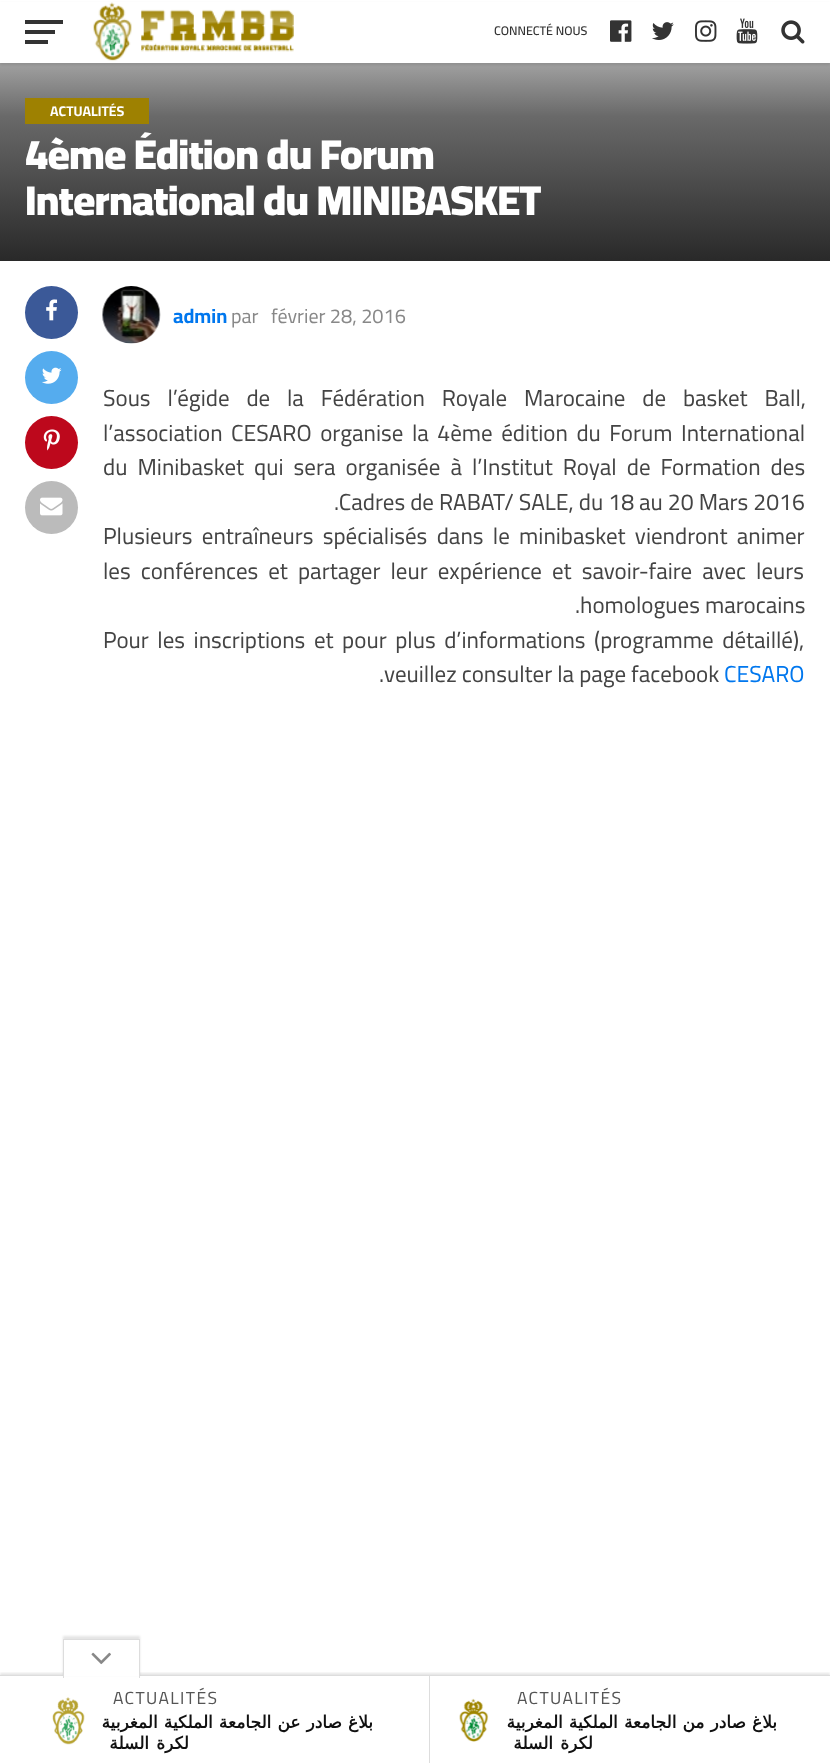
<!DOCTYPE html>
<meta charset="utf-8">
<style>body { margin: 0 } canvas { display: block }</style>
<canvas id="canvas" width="830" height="1763"></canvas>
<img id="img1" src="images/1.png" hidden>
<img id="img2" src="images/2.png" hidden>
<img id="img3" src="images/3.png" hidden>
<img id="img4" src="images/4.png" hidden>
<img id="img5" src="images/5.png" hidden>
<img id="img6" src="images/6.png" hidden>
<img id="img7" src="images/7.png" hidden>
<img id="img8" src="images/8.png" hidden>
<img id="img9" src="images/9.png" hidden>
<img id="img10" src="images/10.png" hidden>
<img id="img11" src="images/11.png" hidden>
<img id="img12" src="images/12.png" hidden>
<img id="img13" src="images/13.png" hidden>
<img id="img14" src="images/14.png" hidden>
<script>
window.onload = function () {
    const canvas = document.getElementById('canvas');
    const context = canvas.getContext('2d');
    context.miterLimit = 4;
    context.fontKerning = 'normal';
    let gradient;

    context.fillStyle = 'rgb(255, 255, 255)';
    context.fillRect(0, 0, 830, 1763);
    gradient = context.createLinearGradient(416, -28, 416, 261);
    gradient.addColorStop(0, 'rgb(255, 255, 255)');
    gradient.addColorStop(0.5, 'rgb(105, 105, 105)');
    gradient.addColorStop(1, 'rgb(41, 41, 41)');
    context.fillStyle = gradient;
    context.fillRect(0, 63, 830, 198);
    context.fillStyle = 'rgba(0, 0, 0, 0.1)';
    context.filter = 'blur(1px)';
    context.beginPath();
    context.rect(0, 3, 830, 62);
    context.fill();
    context.filter = 'none';
    context.fillStyle = 'rgb(255, 255, 255)';
    context.fillRect(0, 2, 830, 61);
    context.fillStyle = 'rgb(51, 51, 51)';
    context.fillRect(25, 20, 38, 4);
    context.fillRect(25, 30, 30, 4);
    context.fillRect(25, 40, 23, 4);
    context.drawImage(document.getElementById('img1'), 93, 2, 201, 59);
    context.drawImage(document.getElementById('img2'), 610, 20, 22, 22);
    context.drawImage(document.getElementById('img3'), 652, 22, 22, 18);
    context.drawImage(document.getElementById('img4'), 695, 20, 22, 22);
    context.drawImage(document.getElementById('img5'), 736, 18, 22, 26);
    context.drawImage(document.getElementById('img6'), 781, 20, 24, 24);
    context.fillStyle = 'rgb(158, 129, 1)';
    context.fillRect(25, 98, 124, 26);
    context.fillStyle = 'rgb(59, 89, 152)';
    context.beginPath();
    context.arc(51.5, 312.5, 26.5, 0, 2 * Math.PI);
    context.fill();
    context.drawImage(document.getElementById('img7'), 46, 299, 12, 22);
    context.fillStyle = 'rgb(85, 172, 238)';
    context.beginPath();
    context.arc(51.5, 377.5, 26.5, 0, 2 * Math.PI);
    context.fill();
    context.drawImage(document.getElementById('img8'), 42, 367, 20, 17);
    context.fillStyle = 'rgb(189, 8, 28)';
    context.beginPath();
    context.arc(51.5, 442.5, 26.5, 0, 2 * Math.PI);
    context.fill();
    context.drawImage(document.getElementById('img9'), 43, 429, 17, 22);
    context.fillStyle = 'rgb(187, 187, 187)';
    context.beginPath();
    context.arc(51.5, 507.5, 26.5, 0, 2 * Math.PI);
    context.fill();
    context.drawImage(document.getElementById('img10'), 40, 497, 23, 19);
    context.drawImage(document.getElementById('img11'), 102, 286, 59, 58);
    context.save();
    context.beginPath();
    context.rect(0, 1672, 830, 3);
    context.clip();
    context.fillStyle = 'rgba(0, 0, 0, 0.1)';
    context.filter = 'blur(1px)';
    context.beginPath();
    context.rect(0, 1673, 830, 88);
    context.fill();
    context.filter = 'none';
    context.restore();
    context.fillStyle = 'rgb(221, 221, 221)';
    context.fillRect(0, 1675, 830, 1);
    context.fillStyle = 'rgba(0, 0, 0, 0.1)';
    context.filter = 'blur(1px)';
    context.beginPath();
    context.rect(63, 1636, 77, 39);
    context.fill();
    context.filter = 'none';
    context.fillStyle = 'rgb(255, 255, 255)';
    context.fillRect(64, 1640, 75, 36);
    context.fillStyle = 'rgb(221, 221, 221)';
    context.fillRect(63, 1639, 77, 1);
    context.fillRect(139, 1639, 1, 39);
    context.fillRect(63, 1639, 1, 39);
    context.drawImage(document.getElementById('img12'), 91, 1652, 20, 13);
    context.drawImage(document.getElementById('img13'), 52, 1697, 33, 48);
    context.fillRect(429, 1676, 1, 87);
    context.drawImage(document.getElementById('img14'), 459, 1698, 30, 44);
    context.font = '600 12.5px Cairo';
    context.fillStyle = 'rgb(51, 51, 51)';
    context.fillText('CONNECTÉ NOUS', 494, 35);
    context.font = 'bold 14px Cairo';
    context.fillStyle = 'rgb(255, 255, 255)';
    context.fillText('ACTUALITÉS', 50, 116);
    context.letterSpacing = '-0.85px';
    context.font = '900 42px Cairo';
    context.fillText('4ème Édition du Forum', 25, 169);
    context.fillText('International du MINIBASKET', 25, 215);
    context.letterSpacing = '0px';
    context.font = 'bold 20px Cairo';
    context.fillStyle = 'rgb(0, 119, 238)';
    context.fillText('admin', 173, 323);
    context.font = '20px Cairo';
    context.fillStyle = 'rgb(136, 136, 136)';
    context.fillText('par', 231, 323);
    context.fillText('février 28, 2016', 271, 323);
    context.wordSpacing = '11.75px';
    context.font = '23px Cairo';
    context.fillStyle = 'rgb(68, 68, 68)';
    context.fillText('Sous l’égide de la Fédération Royale Marocaine de basket Ball,', 103, 406);
    context.wordSpacing = '3.5px';
    context.fillText('l’association CESARO organise la 4ème édition du Forum International', 103, 441);
    context.wordSpacing = '5px';
    context.fillText('du Minibasket qui sera organisée à l’Institut Royal de Formation des', 103, 475);
    context.wordSpacing = '0px';
    context.fillText('.Cadres de RABAT/ SALE, du 18 au 20 Mars 2016', 334, 510);
    context.wordSpacing = '4.25px';
    context.fillText('Plusieurs entraîneurs spécialisés dans le minibasket viendront animer', 103, 544);
    context.wordSpacing = '5px';
    context.fillText('les conférences et partager leur expérience et savoir-faire avec leurs', 103, 579);
    context.wordSpacing = '0px';
    context.fillText('.homologues marocains', 575, 613);
    context.wordSpacing = '3.5px';
    context.fillText('Pour les inscriptions et pour plus d’informations (programme détaillé),', 103, 648);
    context.wordSpacing = '0px';
    context.fillText('.', 379, 682);
    context.fillText('veuillez consulter la page facebook', 384, 682);
    context.fillStyle = 'rgb(0, 119, 238)';
    context.fillText('CESARO', 724, 682);
    context.letterSpacing = '1.4px';
    context.font = '17.5px Cairo';
    context.fillStyle = 'rgb(85, 85, 85)';
    context.fillText('ACTUALITÉS', 113, 1704);
    context.letterSpacing = '-0.35px';
    context.wordSpacing = '1px';
    context.direction = 'rtl';
    context.font = 'bold 17px DejaVu Sans';
    context.fillStyle = 'rgb(17, 17, 17)';
    context.fillText('بلاغ صادر عن الجامعة الملكية المغربية', 373, 1728);
    context.wordSpacing = '2px';
    context.fillText('لكرة السلة', 189, 1749);
    context.letterSpacing = '1.4px';
    context.wordSpacing = '0px';
    context.direction = 'ltr';
    context.font = '17.5px Cairo';
    context.fillStyle = 'rgb(85, 85, 85)';
    context.fillText('ACTUALITÉS', 517, 1704);
    context.letterSpacing = '-0.35px';
    context.wordSpacing = '1px';
    context.direction = 'rtl';
    context.font = 'bold 17px DejaVu Sans';
    context.fillStyle = 'rgb(17, 17, 17)';
    context.fillText('بلاغ صادر من الجامعة الملكية المغربية', 777, 1728);
    context.wordSpacing = '2px';
    context.fillText('لكرة السلة', 593, 1749);
};
</script>
